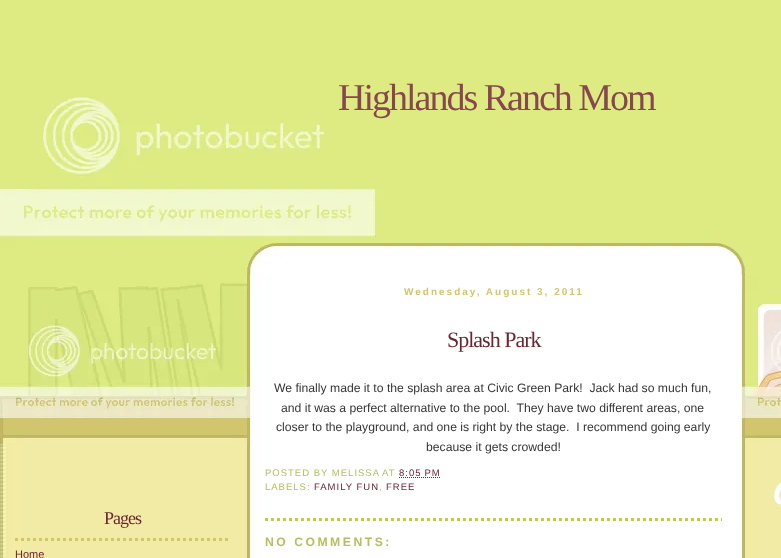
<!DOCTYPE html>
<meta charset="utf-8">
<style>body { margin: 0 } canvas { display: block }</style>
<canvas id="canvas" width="781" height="558"></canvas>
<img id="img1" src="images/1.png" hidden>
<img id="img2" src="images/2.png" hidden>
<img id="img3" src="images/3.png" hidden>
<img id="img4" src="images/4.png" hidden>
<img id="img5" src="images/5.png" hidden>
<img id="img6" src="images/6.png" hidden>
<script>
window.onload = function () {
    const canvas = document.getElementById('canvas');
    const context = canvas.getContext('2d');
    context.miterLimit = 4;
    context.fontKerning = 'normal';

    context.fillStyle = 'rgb(255, 255, 255)';
    context.fillRect(0, 0, 781, 558);
    context.drawImage(document.getElementById('img1'), 0, 275, 781, 283);
    context.drawImage(document.getElementById('img2'), 0, 25, 781, 250);
    context.drawImage(document.getElementById('img3'), 742, 275, 39, 169);
    context.drawImage(document.getElementById('img4'), 0, 0, 781, 25);
    context.drawImage(document.getElementById('img5'), 774, 483, 7, 22);
    context.drawImage(document.getElementById('img6'), 0, 275, 250, 169);
    context.beginPath();
    context.moveTo(15, 539.5);
    context.lineTo(230, 539.5);
    context.strokeStyle = 'rgb(209, 198, 112)';
    context.lineWidth = 3;
    context.setLineDash([3, 3]);
    context.stroke();
    context.beginPath();
    context.moveTo(265, 519.5);
    context.lineTo(722, 519.5);
    context.strokeStyle = 'rgb(185, 205, 86)';
    context.stroke();
    context.beginPath();
    context.moveTo(399, 477.5);
    context.lineTo(440, 477.5);
    context.strokeStyle = 'rgb(107, 39, 56)';
    context.lineWidth = 1;
    context.setLineDash([1, 1]);
    context.stroke();
    context.letterSpacing = '-2px';
    context.font = '38px Liberation Serif';
    context.fillStyle = 'rgb(136, 71, 80)';
    context.fillText('Highlands Ranch Mom', 338, 110);
    context.letterSpacing = '-1px';
    context.font = '18px Liberation Serif';
    context.fillStyle = 'rgb(106, 37, 54)';
    context.fillText('Pages', 104, 524);
    context.letterSpacing = '0px';
    context.font = '11px Liberation Sans';
    context.fillText('Home', 15, 558);
    context.letterSpacing = '2px';
    context.font = 'bold 10px Liberation Sans';
    context.fillStyle = 'rgb(209, 198, 112)';
    context.fillText('Wednesday, August 3, 2011', 404, 295);
    context.letterSpacing = '-1px';
    context.font = '22px Liberation Serif';
    context.fillStyle = 'rgb(106, 37, 54)';
    context.fillText('Splash Park', 447, 347);
    context.letterSpacing = '0px';
    context.font = '12.2px Liberation Sans';
    context.fillStyle = 'rgb(53, 53, 53)';
    context.fillText('We finally made it to the splash area at Civic Green Park!  Jack had so much fun,', 274, 392);
    context.fillText('and it was a perfect alternative to the pool.  They have two different areas, one', 281, 412);
    context.fillText('closer to the playground, and one is right by the stage.  I recommend going early', 276, 431);
    context.fillText('because it gets crowded!', 426, 451);
    context.letterSpacing = '1px';
    context.font = '9.5px Liberation Sans';
    context.fillStyle = 'rgb(181, 191, 95)';
    context.fillText('POSTED BY MELISSA', 265, 476);
    context.fillText('AT', 382, 476);
    context.fillStyle = 'rgb(106, 37, 54)';
    context.fillText('8:05 PM', 399, 476);
    context.fillStyle = 'rgb(181, 191, 95)';
    context.fillText('LABELS:', 265, 490);
    context.fillStyle = 'rgb(106, 37, 54)';
    context.fillText('FAMILY FUN', 314, 490);
    context.fillText('FREE', 386, 490);
    context.fillStyle = 'rgb(181, 191, 95)';
    context.fillText(',', 379, 490);
    context.letterSpacing = '2.5px';
    context.font = 'bold 12.2px Liberation Sans';
    context.fillText('NO COMMENTS:', 265, 546);
};
</script>
